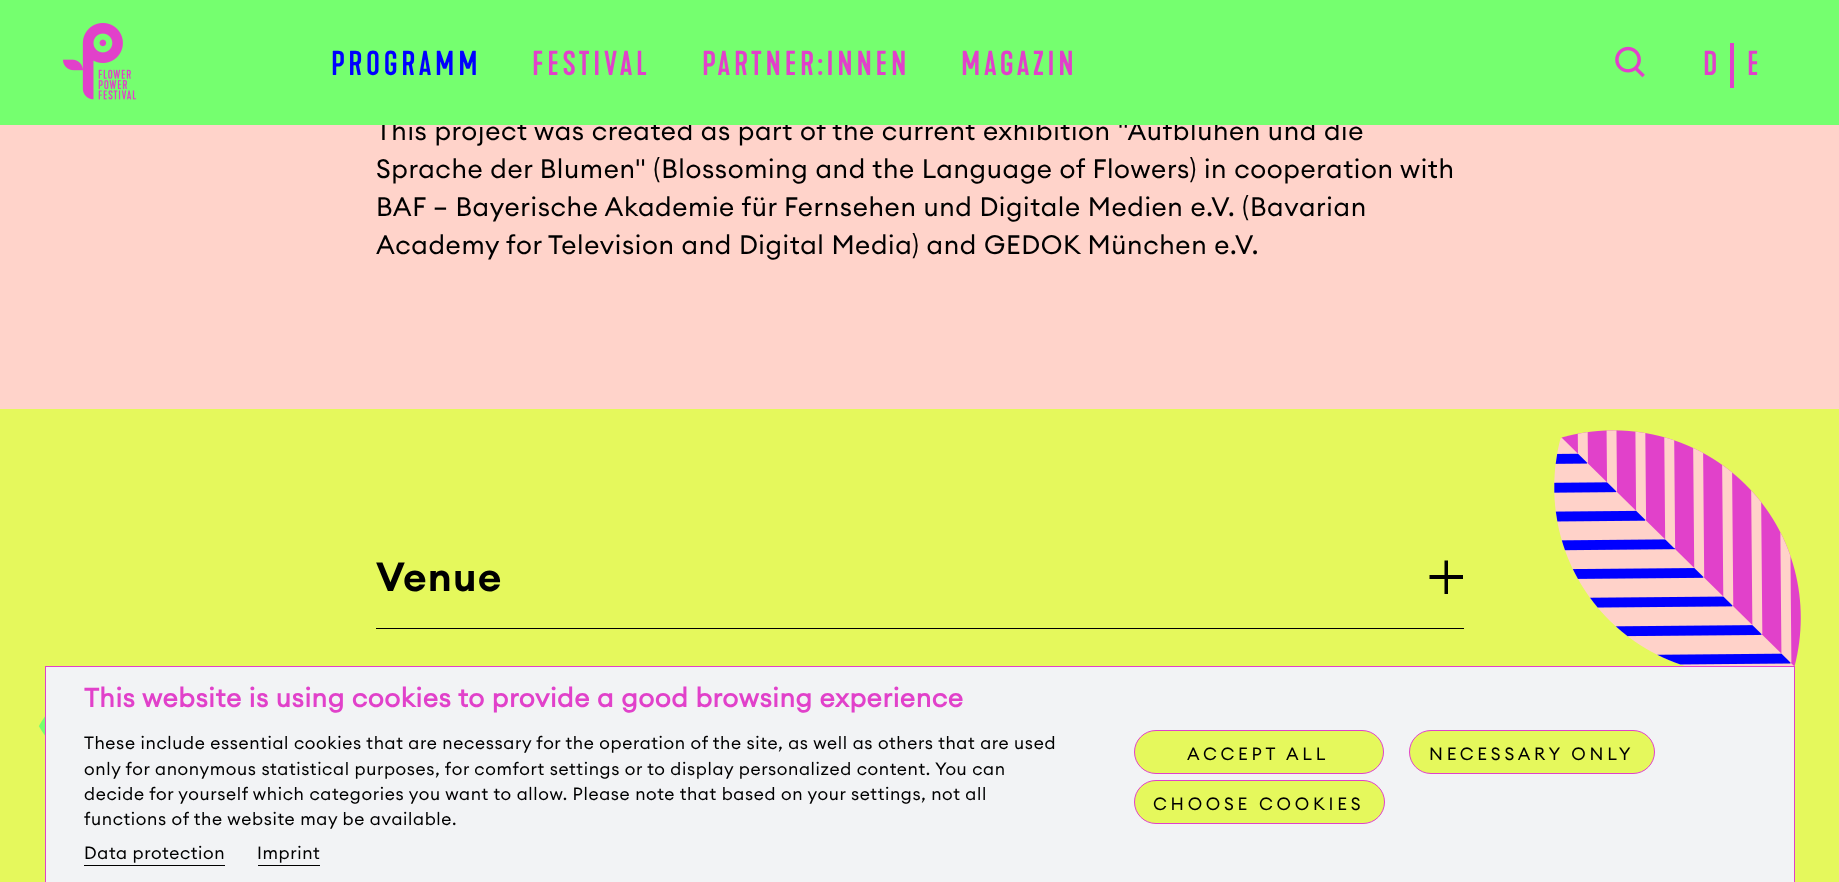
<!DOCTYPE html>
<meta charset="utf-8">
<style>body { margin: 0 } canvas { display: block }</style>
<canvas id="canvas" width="1839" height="882"></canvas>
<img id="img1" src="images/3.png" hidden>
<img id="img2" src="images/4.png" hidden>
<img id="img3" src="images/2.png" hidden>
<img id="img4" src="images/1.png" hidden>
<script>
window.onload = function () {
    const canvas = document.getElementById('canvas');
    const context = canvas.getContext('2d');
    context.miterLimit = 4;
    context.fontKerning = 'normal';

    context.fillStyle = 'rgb(255, 211, 202)';
    context.fillRect(0, 0, 1839, 882);
    context.fillStyle = 'rgb(229, 248, 92)';
    context.fillRect(0, 409, 1839, 473);
    context.fillStyle = 'rgb(0, 0, 0)';
    context.fillRect(376, 628, 1088, 1);
    context.beginPath();
    context.moveTo(1448, 575);
    context.lineTo(1448, 560.5);
    context.lineTo(1444.5, 560.5);
    context.lineTo(1444.5, 575);
    context.lineTo(1429.5, 575);
    context.lineTo(1429.5, 579);
    context.lineTo(1444.5, 579);
    context.lineTo(1444.5, 594);
    context.lineTo(1448, 594);
    context.lineTo(1448, 579);
    context.lineTo(1463, 579);
    context.lineTo(1463, 575);
    context.closePath();
    context.fill();
    context.drawImage(document.getElementById('img1'), 1554, 430, 247, 236);
    context.drawImage(document.getElementById('img2'), 38, 716, 7, 20);
    context.fillStyle = 'rgb(242, 243, 245)';
    context.fillRect(46, 667, 1748, 215);
    context.fillStyle = 'rgb(225, 65, 202)';
    context.fillRect(45, 666, 1750, 1);
    context.fillRect(1794, 666, 1, 216);
    context.fillRect(45, 666, 1, 216);
    context.fillStyle = 'rgb(229, 248, 92)';
    context.beginPath();
    context.roundRect(1134.5, 730.5, 249, 43, 21.5);
    context.fill();
    context.strokeStyle = 'rgb(225, 65, 202)';
    context.stroke();
    context.beginPath();
    context.roundRect(1409.5, 730.5, 245, 43, 21.5);
    context.fill();
    context.stroke();
    context.beginPath();
    context.roundRect(1134.5, 780.5, 250, 43, 21.5);
    context.fill();
    context.stroke();
    context.fillStyle = 'rgb(0, 0, 0)';
    context.fillRect(84, 865, 141, 1);
    context.fillRect(258, 865, 62, 1);
    context.letterSpacing = '0.62px';
    context.font = '26.25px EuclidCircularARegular';
    context.fillText('This project was created as part of the current exhibition "Aufblühen und die', 376, 140);
    context.fillStyle = 'rgb(117, 255, 111)';
    context.fillRect(0, 0, 1839, 125);
    context.letterSpacing = '3.75px';
    context.font = '500 32.5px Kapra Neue';
    context.fillStyle = 'rgb(225, 65, 202)';
    context.fillText('MAGAZIN', 961, 75);
    context.fillText('PARTNER:INNEN', 702, 75);
    context.fillText('FESTIVAL', 532, 75);
    context.fillStyle = 'rgb(0, 0, 255)';
    context.fillText('PROGRAMM', 331, 75);
    context.letterSpacing = '0.62px';
    context.fillStyle = 'rgb(225, 65, 202)';
    context.fillText('E', 1747, 75);
    context.fillText('D', 1703, 75);
    context.fillRect(1730, 43, 4, 45);
    context.drawImage(document.getElementById('img3'), 1615, 46, 30, 32);
    context.drawImage(document.getElementById('img4'), 63, 23, 73, 77);
    context.font = '26.25px EuclidCircularARegular';
    context.fillStyle = 'rgb(0, 0, 0)';
    context.fillText('Sprache der Blumen" (Blossoming and the Language of Flowers) in cooperation with', 376, 178);
    context.fillText('BAF – Bayerische Akademie für Fernsehen und Digitale Medien e.V. (Bavarian', 376, 216);
    context.fillText('Academy for Television and Digital Media) and GEDOK München e.V.', 376, 254);
    context.letterSpacing = '1.25px';
    context.font = '600 40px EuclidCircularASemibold';
    context.fillText('Venue', 376, 591);
    context.letterSpacing = '0.62px';
    context.font = 'bold 26.25px EuclidCircularARegular';
    context.fillStyle = 'rgb(225, 65, 202)';
    context.fillText('This website is using cookies to provide a good browsing experience', 84, 707);
    context.font = '17.5px EuclidCircularARegular';
    context.fillStyle = 'rgb(0, 0, 0)';
    context.fillText('These include essential cookies that are necessary for the operation of the site, as well as others that are used', 84, 749);
    context.fillText('only for anonymous statistical purposes, for comfort settings or to display personalized content. You can', 84, 775);
    context.fillText('decide for yourself which categories you want to allow. Please note that based on your settings, not all', 84, 800);
    context.fillText('functions of the website may be available.', 84, 825);
    context.letterSpacing = '3.75px';
    context.fillText('ACCEPT ALL', 1187, 760);
    context.fillText('NECESSARY ONLY', 1429, 760);
    context.fillText('CHOOSE COOKIES', 1153, 810);
    context.letterSpacing = '0.62px';
    context.fillText('Data protection', 84, 859);
    context.fillText('Imprint', 257, 859);
};
</script>
